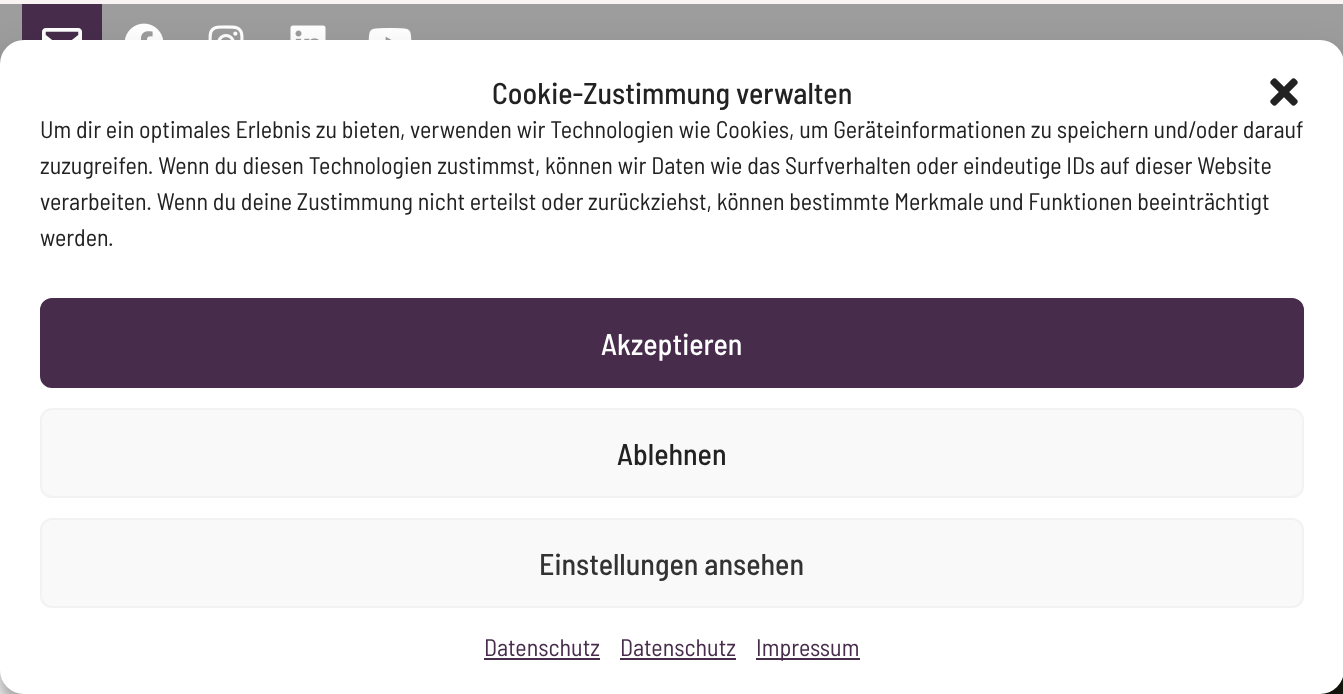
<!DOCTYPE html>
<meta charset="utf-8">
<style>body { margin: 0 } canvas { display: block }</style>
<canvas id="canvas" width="1343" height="694"></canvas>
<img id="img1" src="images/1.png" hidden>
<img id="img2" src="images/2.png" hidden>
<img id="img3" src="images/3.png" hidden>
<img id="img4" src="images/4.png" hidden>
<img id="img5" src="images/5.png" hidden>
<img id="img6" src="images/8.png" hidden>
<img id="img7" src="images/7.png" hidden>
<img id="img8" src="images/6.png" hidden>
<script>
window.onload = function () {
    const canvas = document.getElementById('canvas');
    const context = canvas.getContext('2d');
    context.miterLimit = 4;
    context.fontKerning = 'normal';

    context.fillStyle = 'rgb(255, 255, 255)';
    context.fillRect(0, 0, 1343, 694);
    context.fillStyle = 'rgb(158, 157, 157)';
    context.fillRect(0, 4, 1343, 60);
    context.fillStyle = 'rgb(249, 243, 243)';
    context.fillRect(0, 0, 1343, 4);
    context.fillStyle = 'rgb(71, 44, 76)';
    context.fillRect(22, 4, 80, 37);
    context.drawImage(document.getElementById('img1'), 42, 28, 40, 12);
    context.drawImage(document.getElementById('img2'), 124, 23, 40, 17);
    context.drawImage(document.getElementById('img3'), 208, 25, 36, 15);
    context.drawImage(document.getElementById('img4'), 290, 25, 36, 15);
    context.drawImage(document.getElementById('img5'), 368, 28, 44, 12);
    context.drawImage(document.getElementById('img6'), 14, 677, 1329, 17);
    context.drawImage(document.getElementById('img7'), 0, 670, 24, 24);
    context.fillStyle = 'rgba(0, 0, 0, 0.23)';
    context.filter = 'blur(6px)';
    context.beginPath();
    context.roundRect(0, 52, 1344, 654, 24);
    context.fill();
    context.filter = 'none';
    context.fillStyle = 'rgba(0, 0, 0, 0.19)';
    context.filter = 'blur(20px)';
    context.beginPath();
    context.roundRect(0, 60, 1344, 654, 24);
    context.fill();
    context.filter = 'none';
    context.fillStyle = 'rgb(255, 255, 255)';
    context.beginPath();
    context.roundRect(0, 40, 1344, 654, 24);
    context.fill();
    context.drawImage(document.getElementById('img8'), 1270, 78, 28, 28);
    context.fillStyle = 'rgb(71, 44, 76)';
    context.beginPath();
    context.roundRect(41, 299, 1262, 88, 11);
    context.fill();
    context.strokeStyle = 'rgb(71, 44, 76)';
    context.lineWidth = 2;
    context.stroke();
    context.fillStyle = 'rgb(249, 249, 249)';
    context.beginPath();
    context.roundRect(41, 409, 1262, 88, 11);
    context.fill();
    context.strokeStyle = 'rgb(242, 242, 242)';
    context.stroke();
    context.beginPath();
    context.roundRect(41, 519, 1262, 88, 11);
    context.fill();
    context.stroke();
    context.fillStyle = 'rgb(71, 44, 76)';
    context.fillRect(484, 658, 116, 2);
    context.fillRect(620, 658, 116, 2);
    context.fillRect(756, 658, 104, 2);
    context.font = '500 30px Barlow Semi Condensed';
    context.fillStyle = 'rgb(34, 34, 34)';
    context.fillText('Cookie-Zustimmung verwalten', 492, 104);
    context.font = '24px Barlow Semi Condensed';
    context.fillText('Um dir ein optimales Erlebnis zu bieten, verwenden wir Technologien wie Cookies, um Geräteinformationen zu speichern und/oder darauf', 40, 138);
    context.fillText('zuzugreifen. Wenn du diesen Technologien zustimmst, können wir Daten wie das Surfverhalten oder eindeutige IDs auf dieser Website', 40, 174);
    context.fillText('verarbeiten. Wenn du deine Zustimmung nicht erteilst oder zurückziehst, können bestimmte Merkmale und Funktionen beeinträchtigt', 40, 210);
    context.fillText('werden.', 40, 246);
    context.font = '500 30px Barlow Semi Condensed';
    context.fillStyle = 'rgb(255, 255, 255)';
    context.fillText('Akzeptieren', 601, 355);
    context.fillStyle = 'rgb(34, 34, 34)';
    context.fillText('Ablehnen', 617, 465);
    context.fillStyle = 'rgb(51, 51, 51)';
    context.fillText('Einstellungen ansehen', 539, 575);
    context.font = '24px Barlow Semi Condensed';
    context.fillStyle = 'rgb(71, 44, 76)';
    context.fillText('Datenschutz', 484, 656);
    context.fillText('Datenschutz', 620, 656);
    context.fillText('Impressum', 756, 656);
};
</script>
